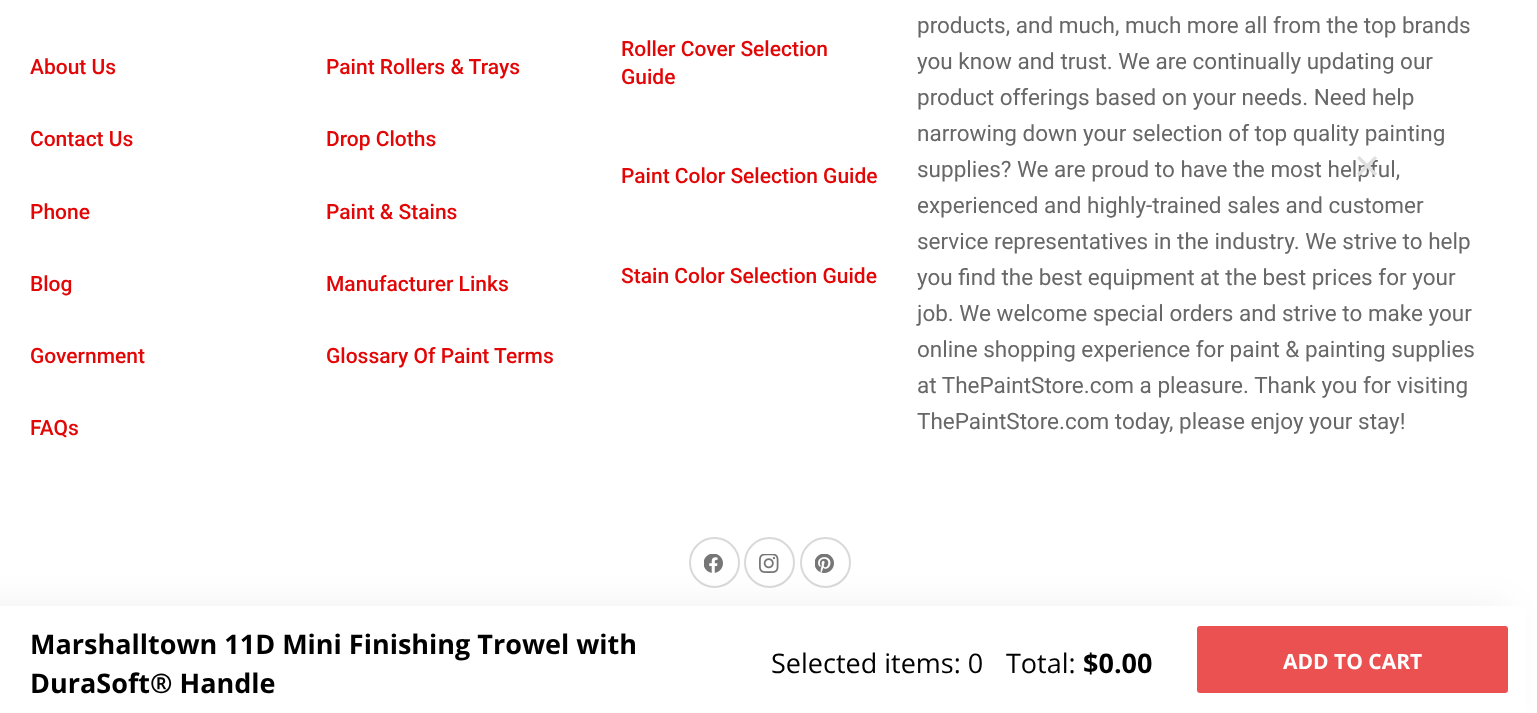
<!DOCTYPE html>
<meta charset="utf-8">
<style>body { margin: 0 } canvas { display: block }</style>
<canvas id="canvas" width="1537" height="713"></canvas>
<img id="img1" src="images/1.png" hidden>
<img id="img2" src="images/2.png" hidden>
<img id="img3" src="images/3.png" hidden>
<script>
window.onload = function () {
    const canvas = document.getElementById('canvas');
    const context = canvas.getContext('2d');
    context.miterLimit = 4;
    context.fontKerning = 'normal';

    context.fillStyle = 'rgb(255, 255, 255)';
    context.fillRect(0, 0, 1537, 713);
    context.beginPath();
    context.arc(714.5, 562.5, 24.5, 0, 2 * Math.PI);
    context.strokeStyle = 'rgb(217, 217, 217)';
    context.lineWidth = 2;
    context.stroke();
    context.drawImage(document.getElementById('img1'), 704, 554, 19, 19);
    context.beginPath();
    context.arc(769.5, 562.5, 24.5, 0, 2 * Math.PI);
    context.stroke();
    context.drawImage(document.getElementById('img2'), 759, 554, 20, 19);
    context.beginPath();
    context.arc(825.5, 562.5, 24.5, 0, 2 * Math.PI);
    context.stroke();
    context.drawImage(document.getElementById('img3'), 815, 554, 19, 19);
    context.fillStyle = 'rgba(0, 0, 0, 0.06)';
    context.filter = 'blur(18px)';
    context.beginPath();
    context.rect(-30, 606, 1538, 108);
    context.fill();
    context.filter = 'none';
    context.fillStyle = 'rgb(255, 255, 255)';
    context.fillRect(0, 606, 1525, 107);
    context.fillStyle = 'rgb(235, 81, 81)';
    context.beginPath();
    context.roundRect(1197, 626, 311, 67, 3);
    context.fill();
    context.font = '500 21px Roboto';
    context.fillStyle = 'rgb(226, 6, 6)';
    context.fillText('About Us', 30, 74);
    context.fillText('Contact Us', 30, 146);
    context.fillText('Phone', 30, 219);
    context.fillText('Blog', 30, 291);
    context.fillText('Government', 30, 363);
    context.fillText('FAQs', 30, 435);
    context.fillText('Paint Rollers & Trays', 326, 74);
    context.fillText('Drop Cloths', 326, 146);
    context.fillText('Paint & Stains', 326, 219);
    context.fillText('Manufacturer Links', 326, 291);
    context.fillText('Glossary Of Paint Terms', 326, 363);
    context.fillText('Roller Cover Selection', 621, 56);
    context.fillText('Guide', 621, 84);
    context.fillText('Paint Color Selection Guide', 621, 183);
    context.fillText('Stain Color Selection Guide', 621, 283);
    context.font = '22.5px Roboto';
    context.fillStyle = 'rgb(103, 103, 103)';
    context.fillText('products, and much, much more all from the top brands', 917, 33);
    context.fillText('you know and trust. We are continually updating our', 917, 69);
    context.fillText('product offerings based on your needs. Need help', 917, 105);
    context.fillText('narrowing down your selection of top quality painting', 917, 141);
    context.fillText('supplies? We are proud to have the most helpful,', 917, 177);
    context.fillText('experienced and highly-trained sales and customer', 917, 213);
    context.fillText('service representatives in the industry. We strive to help', 917, 249);
    context.fillText('you find the best equipment at the best prices for your', 917, 285);
    context.fillText('job. We welcome special orders and strive to make your', 917, 321);
    context.fillText('online shopping experience for paint & painting supplies', 917, 357);
    context.fillText('at ThePaintStore.com a pleasure. Thank you for visiting', 917, 393);
    context.fillText('ThePaintStore.com today, please enjoy your stay!', 917, 429);
    context.font = '45px Liberation Sans';
    context.fillStyle = 'rgb(223, 223, 223)';
    context.fillText('×', 1354, 181);
    context.font = 'bold 27px Open Sans';
    context.fillStyle = 'rgb(0, 0, 0)';
    context.fillText('Marshalltown 11D Mini Finishing Trowel with', 30, 654);
    context.fillText('DuraSoft® Handle', 30, 693);
    context.font = '27px Open Sans';
    context.fillText('Selected items: 0', 771, 673);
    context.fillText('Total:', 1006, 673);
    context.font = 'bold 27px Open Sans';
    context.fillText('$0.00', 1083, 673);
    context.font = 'bold 21px Open Sans';
    context.fillStyle = 'rgb(255, 255, 255)';
    context.fillText('ADD TO CART', 1283, 669);
};
</script>
